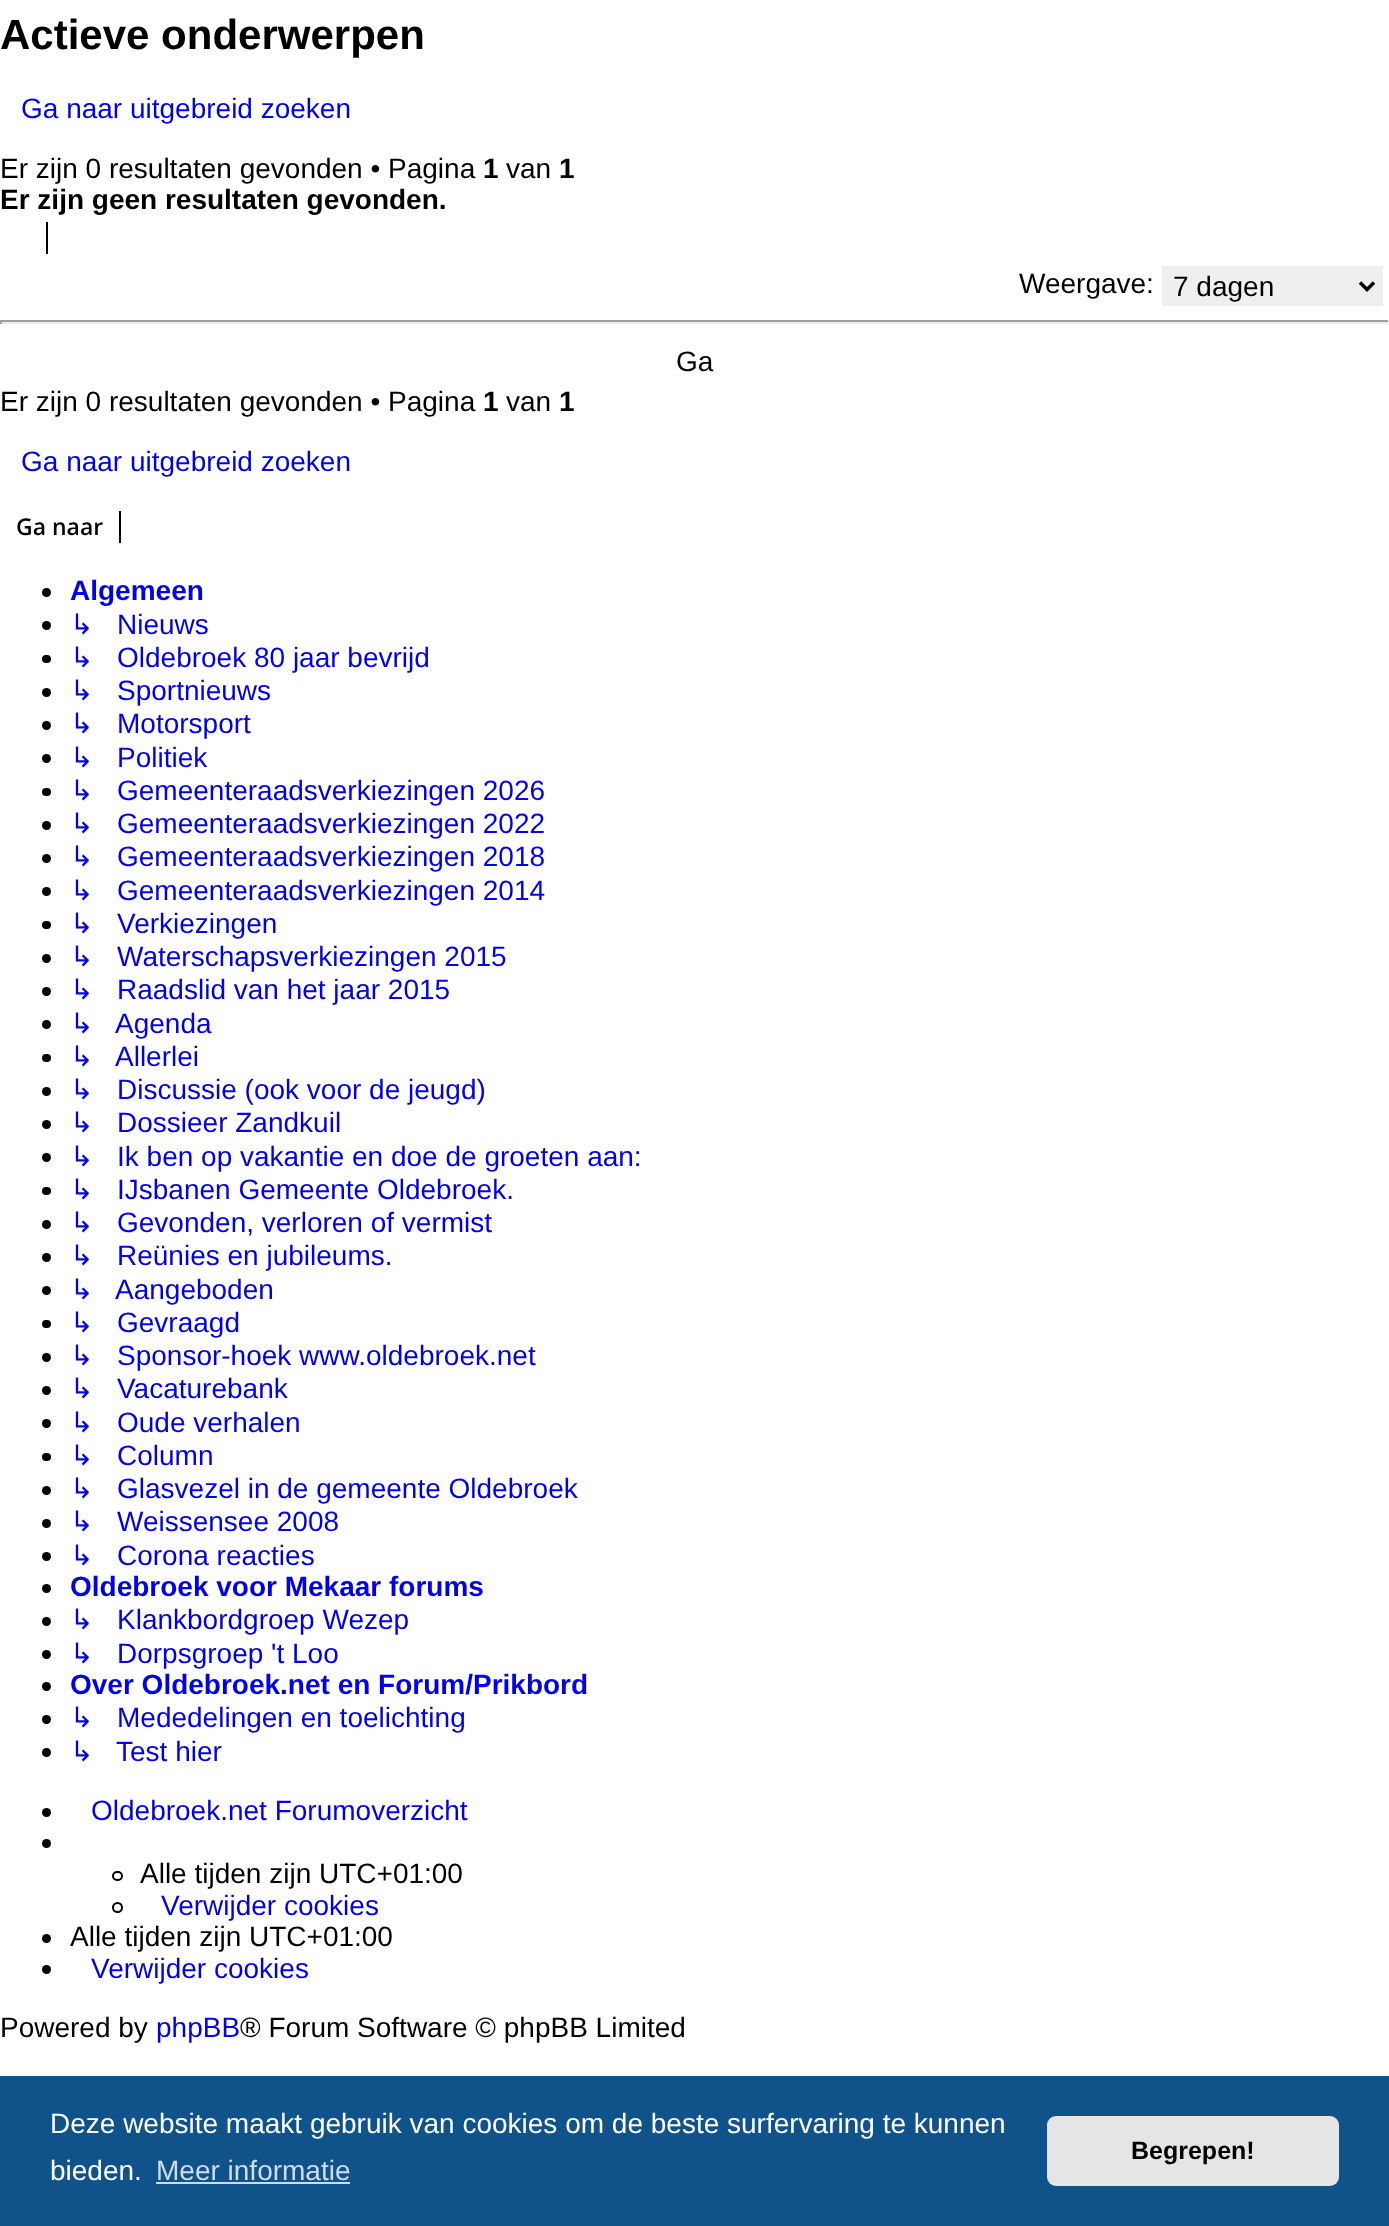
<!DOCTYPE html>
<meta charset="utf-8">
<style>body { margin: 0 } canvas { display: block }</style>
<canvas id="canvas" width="1389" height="2226"></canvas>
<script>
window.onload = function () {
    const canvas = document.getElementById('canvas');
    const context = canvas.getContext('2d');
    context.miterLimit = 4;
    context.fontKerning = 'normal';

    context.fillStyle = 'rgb(255, 255, 255)';
    context.fillRect(0, 0, 1389, 2226);
    context.fillStyle = 'rgb(0, 0, 0)';
    context.fillRect(46, 222, 2, 32);
    context.fillStyle = 'rgb(239, 239, 239)';
    context.fillRect(1162, 266, 221, 40);
    context.beginPath();
    context.moveTo(1360, 282.5);
    context.lineTo(1367, 289.5);
    context.lineTo(1374, 282.5);
    context.strokeStyle = 'rgb(0, 0, 0)';
    context.lineWidth = 3.5;
    context.stroke();
    context.fillStyle = 'rgb(159, 159, 159)';
    context.fillRect(0, 320, 1389, 2);
    context.fillStyle = 'rgb(238, 238, 238)';
    context.fillRect(1388, 320, 1, 4);
    context.fillRect(0, 322, 1389, 2);
    context.fillStyle = 'rgb(159, 159, 159)';
    context.fillRect(0, 320, 2, 4);
    context.fillStyle = 'rgb(0, 0, 0)';
    context.fillRect(119, 511, 2, 32);
    context.beginPath();
    context.arc(46.5, 592.5, 4.5, 0, 2 * Math.PI);
    context.fill();
    context.beginPath();
    context.arc(46.5, 625.5, 4.5, 0, 2 * Math.PI);
    context.fill();
    context.beginPath();
    context.roundRect(42, 655, 9, 8, 4);
    context.fill();
    context.beginPath();
    context.arc(46.5, 692.5, 4.5, 0, 2 * Math.PI);
    context.fill();
    context.beginPath();
    context.arc(46.5, 725.5, 4.5, 0, 2 * Math.PI);
    context.fill();
    context.beginPath();
    context.arc(46.5, 758.5, 4.5, 0, 2 * Math.PI);
    context.fill();
    context.beginPath();
    context.roundRect(42, 788, 9, 8, 4);
    context.fill();
    context.beginPath();
    context.arc(46.5, 825.5, 4.5, 0, 2 * Math.PI);
    context.fill();
    context.beginPath();
    context.arc(46.5, 858.5, 4.5, 0, 2 * Math.PI);
    context.fill();
    context.beginPath();
    context.arc(46.5, 891.5, 4.5, 0, 2 * Math.PI);
    context.fill();
    context.beginPath();
    context.roundRect(42, 921, 9, 8, 4);
    context.fill();
    context.beginPath();
    context.arc(46.5, 958.5, 4.5, 0, 2 * Math.PI);
    context.fill();
    context.beginPath();
    context.arc(46.5, 991.5, 4.5, 0, 2 * Math.PI);
    context.fill();
    context.beginPath();
    context.arc(46.5, 1024.5, 4.5, 0, 2 * Math.PI);
    context.fill();
    context.beginPath();
    context.roundRect(42, 1054, 9, 8, 4);
    context.fill();
    context.beginPath();
    context.arc(46.5, 1091.5, 4.5, 0, 2 * Math.PI);
    context.fill();
    context.beginPath();
    context.arc(46.5, 1124.5, 4.5, 0, 2 * Math.PI);
    context.fill();
    context.beginPath();
    context.arc(46.5, 1157.5, 4.5, 0, 2 * Math.PI);
    context.fill();
    context.beginPath();
    context.roundRect(42, 1187, 9, 8, 4);
    context.fill();
    context.beginPath();
    context.arc(46.5, 1224.5, 4.5, 0, 2 * Math.PI);
    context.fill();
    context.beginPath();
    context.arc(46.5, 1257.5, 4.5, 0, 2 * Math.PI);
    context.fill();
    context.beginPath();
    context.arc(46.5, 1290.5, 4.5, 0, 2 * Math.PI);
    context.fill();
    context.beginPath();
    context.roundRect(42, 1320, 9, 8, 4);
    context.fill();
    context.beginPath();
    context.arc(46.5, 1357.5, 4.5, 0, 2 * Math.PI);
    context.fill();
    context.beginPath();
    context.arc(46.5, 1390.5, 4.5, 0, 2 * Math.PI);
    context.fill();
    context.beginPath();
    context.arc(46.5, 1423.5, 4.5, 0, 2 * Math.PI);
    context.fill();
    context.beginPath();
    context.roundRect(42, 1453, 9, 8, 4);
    context.fill();
    context.beginPath();
    context.arc(46.5, 1490.5, 4.5, 0, 2 * Math.PI);
    context.fill();
    context.beginPath();
    context.arc(46.5, 1523.5, 4.5, 0, 2 * Math.PI);
    context.fill();
    context.beginPath();
    context.arc(46.5, 1556.5, 4.5, 0, 2 * Math.PI);
    context.fill();
    context.beginPath();
    context.arc(46.5, 1588.5, 4.5, 0, 2 * Math.PI);
    context.fill();
    context.beginPath();
    context.arc(46.5, 1621.5, 4.5, 0, 2 * Math.PI);
    context.fill();
    context.beginPath();
    context.arc(46.5, 1654.5, 4.5, 0, 2 * Math.PI);
    context.fill();
    context.beginPath();
    context.arc(46.5, 1686.5, 4.5, 0, 2 * Math.PI);
    context.fill();
    context.beginPath();
    context.arc(46.5, 1719.5, 4.5, 0, 2 * Math.PI);
    context.fill();
    context.beginPath();
    context.arc(46.5, 1752.5, 4.5, 0, 2 * Math.PI);
    context.fill();
    context.beginPath();
    context.arc(46.5, 1812.5, 4.5, 0, 2 * Math.PI);
    context.fill();
    context.beginPath();
    context.arc(46.5, 1843.5, 4.5, 0, 2 * Math.PI);
    context.fill();
    context.beginPath();
    context.roundRect(113, 1872, 9, 8, 4);
    context.lineWidth = 2;
    context.stroke();
    context.beginPath();
    context.arc(117.5, 1907.5, 4.5, 0, 2 * Math.PI);
    context.stroke();
    context.beginPath();
    context.arc(46.5, 1938.5, 4.5, 0, 2 * Math.PI);
    context.fill();
    context.beginPath();
    context.arc(46.5, 1969.5, 4.5, 0, 2 * Math.PI);
    context.fill();
    context.fillStyle = 'rgb(15, 83, 138)';
    context.fillRect(0, 2076, 1389, 150);
    context.fillStyle = 'rgb(207, 221, 232)';
    context.fillRect(156, 2182, 194, 2);
    context.fillStyle = 'rgb(229, 229, 229)';
    context.beginPath();
    context.roundRect(1047, 2116, 292, 70, 9);
    context.fill();
    context.font = 'bold 42px Liberation Sans';
    context.fillStyle = 'rgb(0, 0, 0)';
    context.fillText('Actieve onderwerpen', 0, 49);
    context.font = '28px Liberation Sans';
    context.fillStyle = 'rgb(0, 0, 238)';
    context.fillText('Ga naar uitgebreid zoeken', 21, 118);
    context.fillStyle = 'rgb(0, 0, 0)';
    context.fillText('Er zijn 0 resultaten gevonden • Pagina', 0, 178);
    context.font = 'bold 28px Liberation Sans';
    context.fillText('1', 483, 178);
    context.font = '28px Liberation Sans';
    context.fillText('van', 506, 178);
    context.font = 'bold 28px Liberation Sans';
    context.fillText('1', 559, 178);
    context.fillText('Er zijn geen resultaten gevonden.', 0, 209);
    context.font = '28px Liberation Sans';
    context.fillText('Weergave:', 1019, 293);
    context.fillText('7 dagen', 1173, 296);
    context.fillText('Ga', 676, 371);
    context.fillText('Er zijn 0 resultaten gevonden • Pagina', 0, 411);
    context.font = 'bold 28px Liberation Sans';
    context.fillText('1', 483, 411);
    context.font = '28px Liberation Sans';
    context.fillText('van', 506, 411);
    context.font = 'bold 28px Liberation Sans';
    context.fillText('1', 559, 411);
    context.font = '28px Liberation Sans';
    context.fillStyle = 'rgb(0, 0, 238)';
    context.fillText('Ga naar uitgebreid zoeken', 21, 471);
    context.font = '600 23px Open Sans';
    context.fillStyle = 'rgb(0, 0, 0)';
    context.fillText('Ga naar', 16, 535);
    context.font = 'bold 28px Liberation Sans';
    context.fillStyle = 'rgb(0, 0, 238)';
    context.fillText('Algemeen', 70, 600);
    context.font = '28px DejaVu Sans';
    context.fillText('↳', 70, 634);
    context.font = '28px Liberation Sans';
    context.fillText('Nieuws', 117, 634);
    context.font = '28px DejaVu Sans';
    context.fillText('↳', 70, 667);
    context.font = '28px Liberation Sans';
    context.fillText('Oldebroek 80 jaar bevrijd', 117, 667);
    context.font = '28px DejaVu Sans';
    context.fillText('↳', 70, 700);
    context.font = '28px Liberation Sans';
    context.fillText('Sportnieuws', 117, 700);
    context.font = '28px DejaVu Sans';
    context.fillText('↳', 70, 733);
    context.font = '28px Liberation Sans';
    context.fillText('Motorsport', 117, 733);
    context.font = '28px DejaVu Sans';
    context.fillText('↳', 70, 767);
    context.font = '28px Liberation Sans';
    context.fillText('Politiek', 117, 767);
    context.font = '28px DejaVu Sans';
    context.fillText('↳', 70, 800);
    context.font = '28px Liberation Sans';
    context.fillText('Gemeenteraadsverkiezingen 2026', 117, 800);
    context.font = '28px DejaVu Sans';
    context.fillText('↳', 70, 833);
    context.font = '28px Liberation Sans';
    context.fillText('Gemeenteraadsverkiezingen 2022', 117, 833);
    context.font = '28px DejaVu Sans';
    context.fillText('↳', 70, 866);
    context.font = '28px Liberation Sans';
    context.fillText('Gemeenteraadsverkiezingen 2018', 117, 866);
    context.font = '28px DejaVu Sans';
    context.fillText('↳', 70, 900);
    context.font = '28px Liberation Sans';
    context.fillText('Gemeenteraadsverkiezingen 2014', 117, 900);
    context.font = '28px DejaVu Sans';
    context.fillText('↳', 70, 933);
    context.font = '28px Liberation Sans';
    context.fillText('Verkiezingen', 117, 933);
    context.font = '28px DejaVu Sans';
    context.fillText('↳', 70, 966);
    context.font = '28px Liberation Sans';
    context.fillText('Waterschapsverkiezingen 2015', 117, 966);
    context.font = '28px DejaVu Sans';
    context.fillText('↳', 70, 999);
    context.font = '28px Liberation Sans';
    context.fillText('Raadslid van het jaar 2015', 117, 999);
    context.font = '28px DejaVu Sans';
    context.fillText('↳', 70, 1033);
    context.font = '28px Liberation Sans';
    context.fillText('Agenda', 115, 1033);
    context.font = '28px DejaVu Sans';
    context.fillText('↳', 70, 1066);
    context.font = '28px Liberation Sans';
    context.fillText('Allerlei', 115, 1066);
    context.font = '28px DejaVu Sans';
    context.fillText('↳', 70, 1099);
    context.font = '28px Liberation Sans';
    context.fillText('Discussie (ook voor de jeugd)', 117, 1099);
    context.font = '28px DejaVu Sans';
    context.fillText('↳', 70, 1132);
    context.font = '28px Liberation Sans';
    context.fillText('Dossieer Zandkuil', 117, 1132);
    context.font = '28px DejaVu Sans';
    context.fillText('↳', 70, 1166);
    context.font = '28px Liberation Sans';
    context.fillText('Ik ben op vakantie en doe de groeten aan:', 117, 1166);
    context.font = '28px DejaVu Sans';
    context.fillText('↳', 70, 1199);
    context.font = '28px Liberation Sans';
    context.fillText('IJsbanen Gemeente Oldebroek.', 117, 1199);
    context.font = '28px DejaVu Sans';
    context.fillText('↳', 70, 1232);
    context.font = '28px Liberation Sans';
    context.fillText('Gevonden, verloren of vermist', 117, 1232);
    context.font = '28px DejaVu Sans';
    context.fillText('↳', 70, 1265);
    context.font = '28px Liberation Sans';
    context.fillText('Reünies en jubileums.', 117, 1265);
    context.font = '28px DejaVu Sans';
    context.fillText('↳', 70, 1299);
    context.font = '28px Liberation Sans';
    context.fillText('Aangeboden', 115, 1299);
    context.font = '28px DejaVu Sans';
    context.fillText('↳', 70, 1332);
    context.font = '28px Liberation Sans';
    context.fillText('Gevraagd', 117, 1332);
    context.font = '28px DejaVu Sans';
    context.fillText('↳', 70, 1365);
    context.font = '28px Liberation Sans';
    context.fillText('Sponsor-hoek www.oldebroek.net', 117, 1365);
    context.font = '28px DejaVu Sans';
    context.fillText('↳', 70, 1398);
    context.font = '28px Liberation Sans';
    context.fillText('Vacaturebank', 117, 1398);
    context.font = '28px DejaVu Sans';
    context.fillText('↳', 70, 1432);
    context.font = '28px Liberation Sans';
    context.fillText('Oude verhalen', 117, 1432);
    context.font = '28px DejaVu Sans';
    context.fillText('↳', 70, 1465);
    context.font = '28px Liberation Sans';
    context.fillText('Column', 117, 1465);
    context.font = '28px DejaVu Sans';
    context.fillText('↳', 70, 1498);
    context.font = '28px Liberation Sans';
    context.fillText('Glasvezel in de gemeente Oldebroek', 117, 1498);
    context.font = '28px DejaVu Sans';
    context.fillText('↳', 70, 1531);
    context.font = '28px Liberation Sans';
    context.fillText('Weissensee 2008', 117, 1531);
    context.font = '28px DejaVu Sans';
    context.fillText('↳', 70, 1565);
    context.font = '28px Liberation Sans';
    context.fillText('Corona reacties', 117, 1565);
    context.font = 'bold 28px Liberation Sans';
    context.fillText('Oldebroek voor Mekaar forums', 70, 1596);
    context.font = '28px DejaVu Sans';
    context.fillText('↳', 70, 1629);
    context.font = '28px Liberation Sans';
    context.fillText('Klankbordgroep Wezep', 117, 1629);
    context.font = '28px DejaVu Sans';
    context.fillText('↳', 70, 1663);
    context.font = '28px Liberation Sans';
    context.fillText('Dorpsgroep \'t Loo', 117, 1663);
    context.font = 'bold 28px Liberation Sans';
    context.fillText('Over Oldebroek.net en Forum/Prikbord', 70, 1694);
    context.font = '28px DejaVu Sans';
    context.fillText('↳', 70, 1727);
    context.font = '28px Liberation Sans';
    context.fillText('Mededelingen en toelichting', 117, 1727);
    context.font = '28px DejaVu Sans';
    context.fillText('↳', 70, 1761);
    context.font = '28px Liberation Sans';
    context.fillText('Test hier', 116, 1761);
    context.fillText('Oldebroek.net Forumoverzicht', 91, 1820);
    context.fillStyle = 'rgb(0, 0, 0)';
    context.fillText('Alle tijden zijn UTC+01:00', 140, 1883);
    context.fillStyle = 'rgb(0, 0, 238)';
    context.fillText('Verwijder cookies', 161, 1915);
    context.fillStyle = 'rgb(0, 0, 0)';
    context.fillText('Alle tijden zijn UTC+01:00', 70, 1946);
    context.fillStyle = 'rgb(0, 0, 238)';
    context.fillText('Verwijder cookies', 91, 1978);
    context.fillStyle = 'rgb(0, 0, 0)';
    context.fillText('Powered by', 0, 2037);
    context.fillStyle = 'rgb(0, 0, 238)';
    context.fillText('phpBB', 156, 2037);
    context.fillStyle = 'rgb(0, 0, 0)';
    context.fillText('® Forum Software © phpBB Limited', 240, 2037);
    context.fillStyle = 'rgb(255, 255, 255)';
    context.fillText('Deze website maakt gebruik van cookies om de beste surfervaring te kunnen', 50, 2133);
    context.fillText('bieden.', 50, 2180);
    context.fillStyle = 'rgb(207, 221, 232)';
    context.fillText('Meer informatie', 156, 2180);
    context.font = 'bold 25px Liberation Sans';
    context.fillStyle = 'rgb(0, 0, 0)';
    context.fillText('Begrepen!', 1131, 2159);
};
</script>
